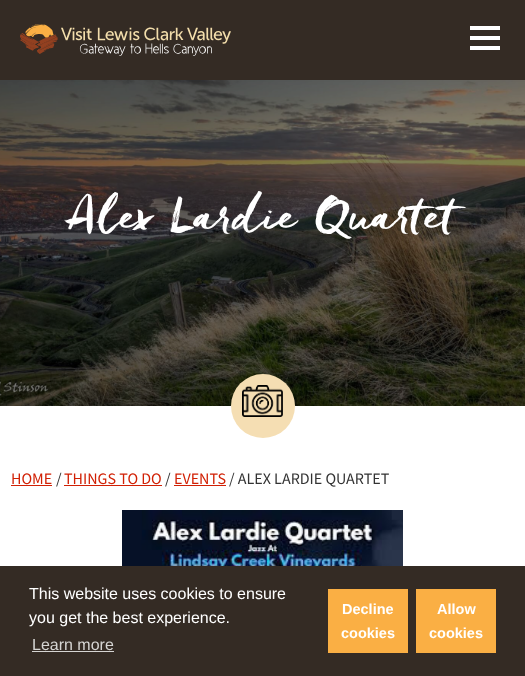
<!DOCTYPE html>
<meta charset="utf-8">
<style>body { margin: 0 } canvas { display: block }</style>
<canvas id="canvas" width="525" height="676"></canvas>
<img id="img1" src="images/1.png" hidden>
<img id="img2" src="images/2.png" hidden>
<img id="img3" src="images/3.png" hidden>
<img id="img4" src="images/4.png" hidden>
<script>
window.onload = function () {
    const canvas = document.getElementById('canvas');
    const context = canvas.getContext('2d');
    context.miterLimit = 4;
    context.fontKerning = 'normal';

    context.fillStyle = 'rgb(255, 255, 255)';
    context.fillRect(0, 0, 525, 676);
    context.fillStyle = 'rgb(52, 43, 36)';
    context.fillRect(0, 0, 525, 80);
    context.drawImage(document.getElementById('img1'), 20, 24, 211, 32);
    context.fillStyle = 'rgb(255, 255, 255)';
    context.fillRect(470, 26, 30, 4);
    context.fillRect(470, 36, 30, 4);
    context.fillRect(470, 46, 30, 4);
    context.drawImage(document.getElementById('img2'), 0, 80, 525, 326);
    context.fillStyle = 'rgb(245, 222, 179)';
    context.beginPath();
    context.arc(263, 406, 32, 0, 2 * Math.PI);
    context.fill();
    context.drawImage(document.getElementById('img3'), 242, 385, 41, 32);
    context.fillStyle = 'rgb(209, 32, 4)';
    context.fillRect(11, 485, 41, 1);
    context.fillRect(64, 485, 98, 1);
    context.fillRect(174, 485, 52, 1);
    context.drawImage(document.getElementById('img4'), 122, 510, 281, 56);
    context.fillStyle = 'rgb(52, 43, 36)';
    context.fillRect(0, 566, 525, 110);
    context.fillStyle = 'rgb(214, 213, 211)';
    context.fillRect(32, 651, 82, 1);
    context.fillStyle = 'rgb(250, 175, 68)';
    context.fillRect(328, 589, 80, 64);
    context.fillRect(416, 589, 80, 64);
    context.font = '48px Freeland';
    context.fillStyle = 'rgb(255, 255, 255)';
    context.fillText('Alex Lardie Quartet', 68, 228);
    context.font = '16px Source Sans Pro';
    context.fillStyle = 'rgb(209, 32, 4)';
    context.fillText('HOME', 11, 484);
    context.fillStyle = 'rgb(51, 51, 51)';
    context.fillText('/', 56, 484);
    context.fillStyle = 'rgb(209, 32, 4)';
    context.fillText('THINGS TO DO', 64, 484);
    context.fillStyle = 'rgb(51, 51, 51)';
    context.fillText('/', 165, 484);
    context.fillStyle = 'rgb(209, 32, 4)';
    context.fillText('EVENTS', 174, 484);
    context.fillStyle = 'rgb(51, 51, 51)';
    context.fillText('/ ALEX LARDIE QUARTET', 229, 484);
    context.font = '16px Liberation Sans';
    context.fillStyle = 'rgb(255, 255, 255)';
    context.fillText('This website uses cookies to ensure', 29, 599);
    context.fillText('you get the best experience.', 29, 623);
    context.fillStyle = 'rgb(214, 213, 211)';
    context.fillText('Learn more', 32, 650);
    context.font = 'bold 14.5px Liberation Sans';
    context.fillStyle = 'rgb(255, 255, 255)';
    context.fillText('Decline', 342, 614);
    context.fillText('cookies', 341, 638);
    context.fillText('Allow', 437, 614);
    context.fillText('cookies', 429, 638);
};
</script>
